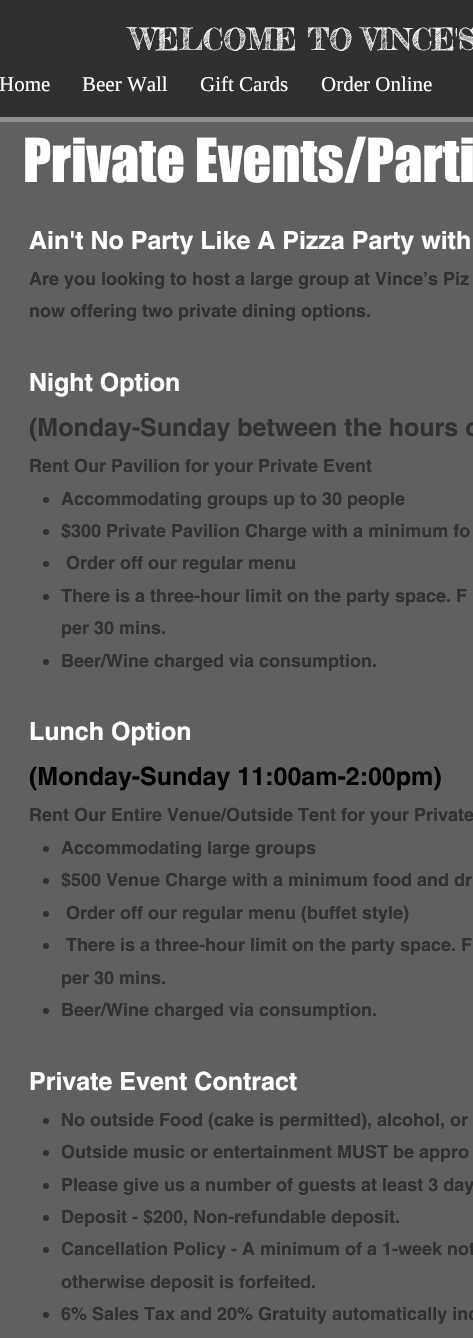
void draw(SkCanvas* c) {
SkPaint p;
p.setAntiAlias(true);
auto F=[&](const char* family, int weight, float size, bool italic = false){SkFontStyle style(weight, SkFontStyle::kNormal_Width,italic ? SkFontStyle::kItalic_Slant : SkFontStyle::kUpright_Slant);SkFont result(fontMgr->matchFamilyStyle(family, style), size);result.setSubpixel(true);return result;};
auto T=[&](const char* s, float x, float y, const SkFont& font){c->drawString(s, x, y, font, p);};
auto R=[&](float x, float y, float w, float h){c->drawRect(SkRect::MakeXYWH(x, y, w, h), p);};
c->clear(0xff606060);
p.setColor(0xff303030);
R(0,0,473,117);
p.setColor(0xff909090);
R(0,117,473,5);
auto f1 = F("Fredericka the Great",400,30);
p.setColor(0xffffffff);
T("WELCOME TO VINCE'S",130,50,f1);
auto f2 = F("Liberation Serif",400,21);
T("Home",-1,91,f2);
T("Beer Wall",82,91,f2);
T("Gift Cards",200,91,f2);
T("Order Online",321,91,f2);
auto f3 = F("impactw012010",400,56);
T("Private Events/Parti",23,182,f3);
auto f4 = F("helvetica",700,25);
T("Ain't No Party Like A Pizza Party with",29,249,f4);
auto f5 = F("helvetica",700,18);
p.setColor(0xff303030);
T("Are you looking to host a large group at Vince’s Piz",29,285,f5);
T("now offering two private dining options.",29,317,f5);
p.setColor(0xffffffff);
T("Night Option",29,391,f4);
p.setColor(0xff303030);
T("(Monday-Sunday between the hours o",29,436,f4);
T("Rent Our Pavilion for your Private Event",29,472,f5);
c->drawCircle(46,500,3,p);
T("Accommodating groups up to 30 people",61,505,f5);
c->drawCircle(46,532,3,p);
T("$300 Private Pavilion Charge with a minimum fo",61,537,f5);
c->drawCircle(46,564,3,p);
T("Order off our regular menu",66,569,f5);
c->drawCircle(46,597,3,p);
T("There is a three-hour limit on the party space. F",61,602,f5);
T("per 30 mins.",61,634,f5);
c->drawCircle(46,662,3,p);
T("Beer/Wine charged via consumption.",61,667,f5);
p.setColor(0xffffffff);
T("Lunch Option",29,740,f4);
p.setColor(0xff000000);
T("(Monday-Sunday 11:00am-2:00pm)",29,785,f4);
p.setColor(0xff303030);
T("Rent Our Entire Venue/Outside Tent for your Private",29,821,f5);
c->drawCircle(46,849,3,p);
T("Accommodating large groups",61,854,f5);
c->drawCircle(46,881,3,p);
T("$500 Venue Charge with a minimum food and dr",61,886,f5);
c->drawCircle(46,914,3,p);
T("Order off our regular menu (buffet style)",66,919,f5);
c->drawCircle(46,946,3,p);
T("There is a three-hour limit on the party space. F",66,951,f5);
T("per 30 mins.",61,984,f5);
c->drawCircle(46,1011,3,p);
T("Beer/Wine charged via consumption.",61,1016,f5);
p.setColor(0xffffffff);
T("Private Event Contract",29,1090,f4);
p.setColor(0xff303030);
c->drawCircle(46,1121,3,p);
T("No outside Food (cake is permitted), alcohol, or",61,1126,f5);
c->drawCircle(46,1153,3,p);
T("Outside music or entertainment MUST be appro",61,1158,f5);
c->drawCircle(46,1186,3,p);
T("Please give us a number of guests at least 3 day",61,1191,f5);
c->drawCircle(46,1218,3,p);
T("Deposit - $200, Non-refundable deposit.",61,1223,f5);
c->drawCircle(46,1250,3,p);
T("Cancellation Policy - A minimum of a 1-week not",61,1255,f5);
T("otherwise deposit is forfeited.",61,1288,f5);
c->drawCircle(46,1315,3,p);
T("6% Sales Tax and 20% Gratuity automatically inc",61,1320,f5);
}
